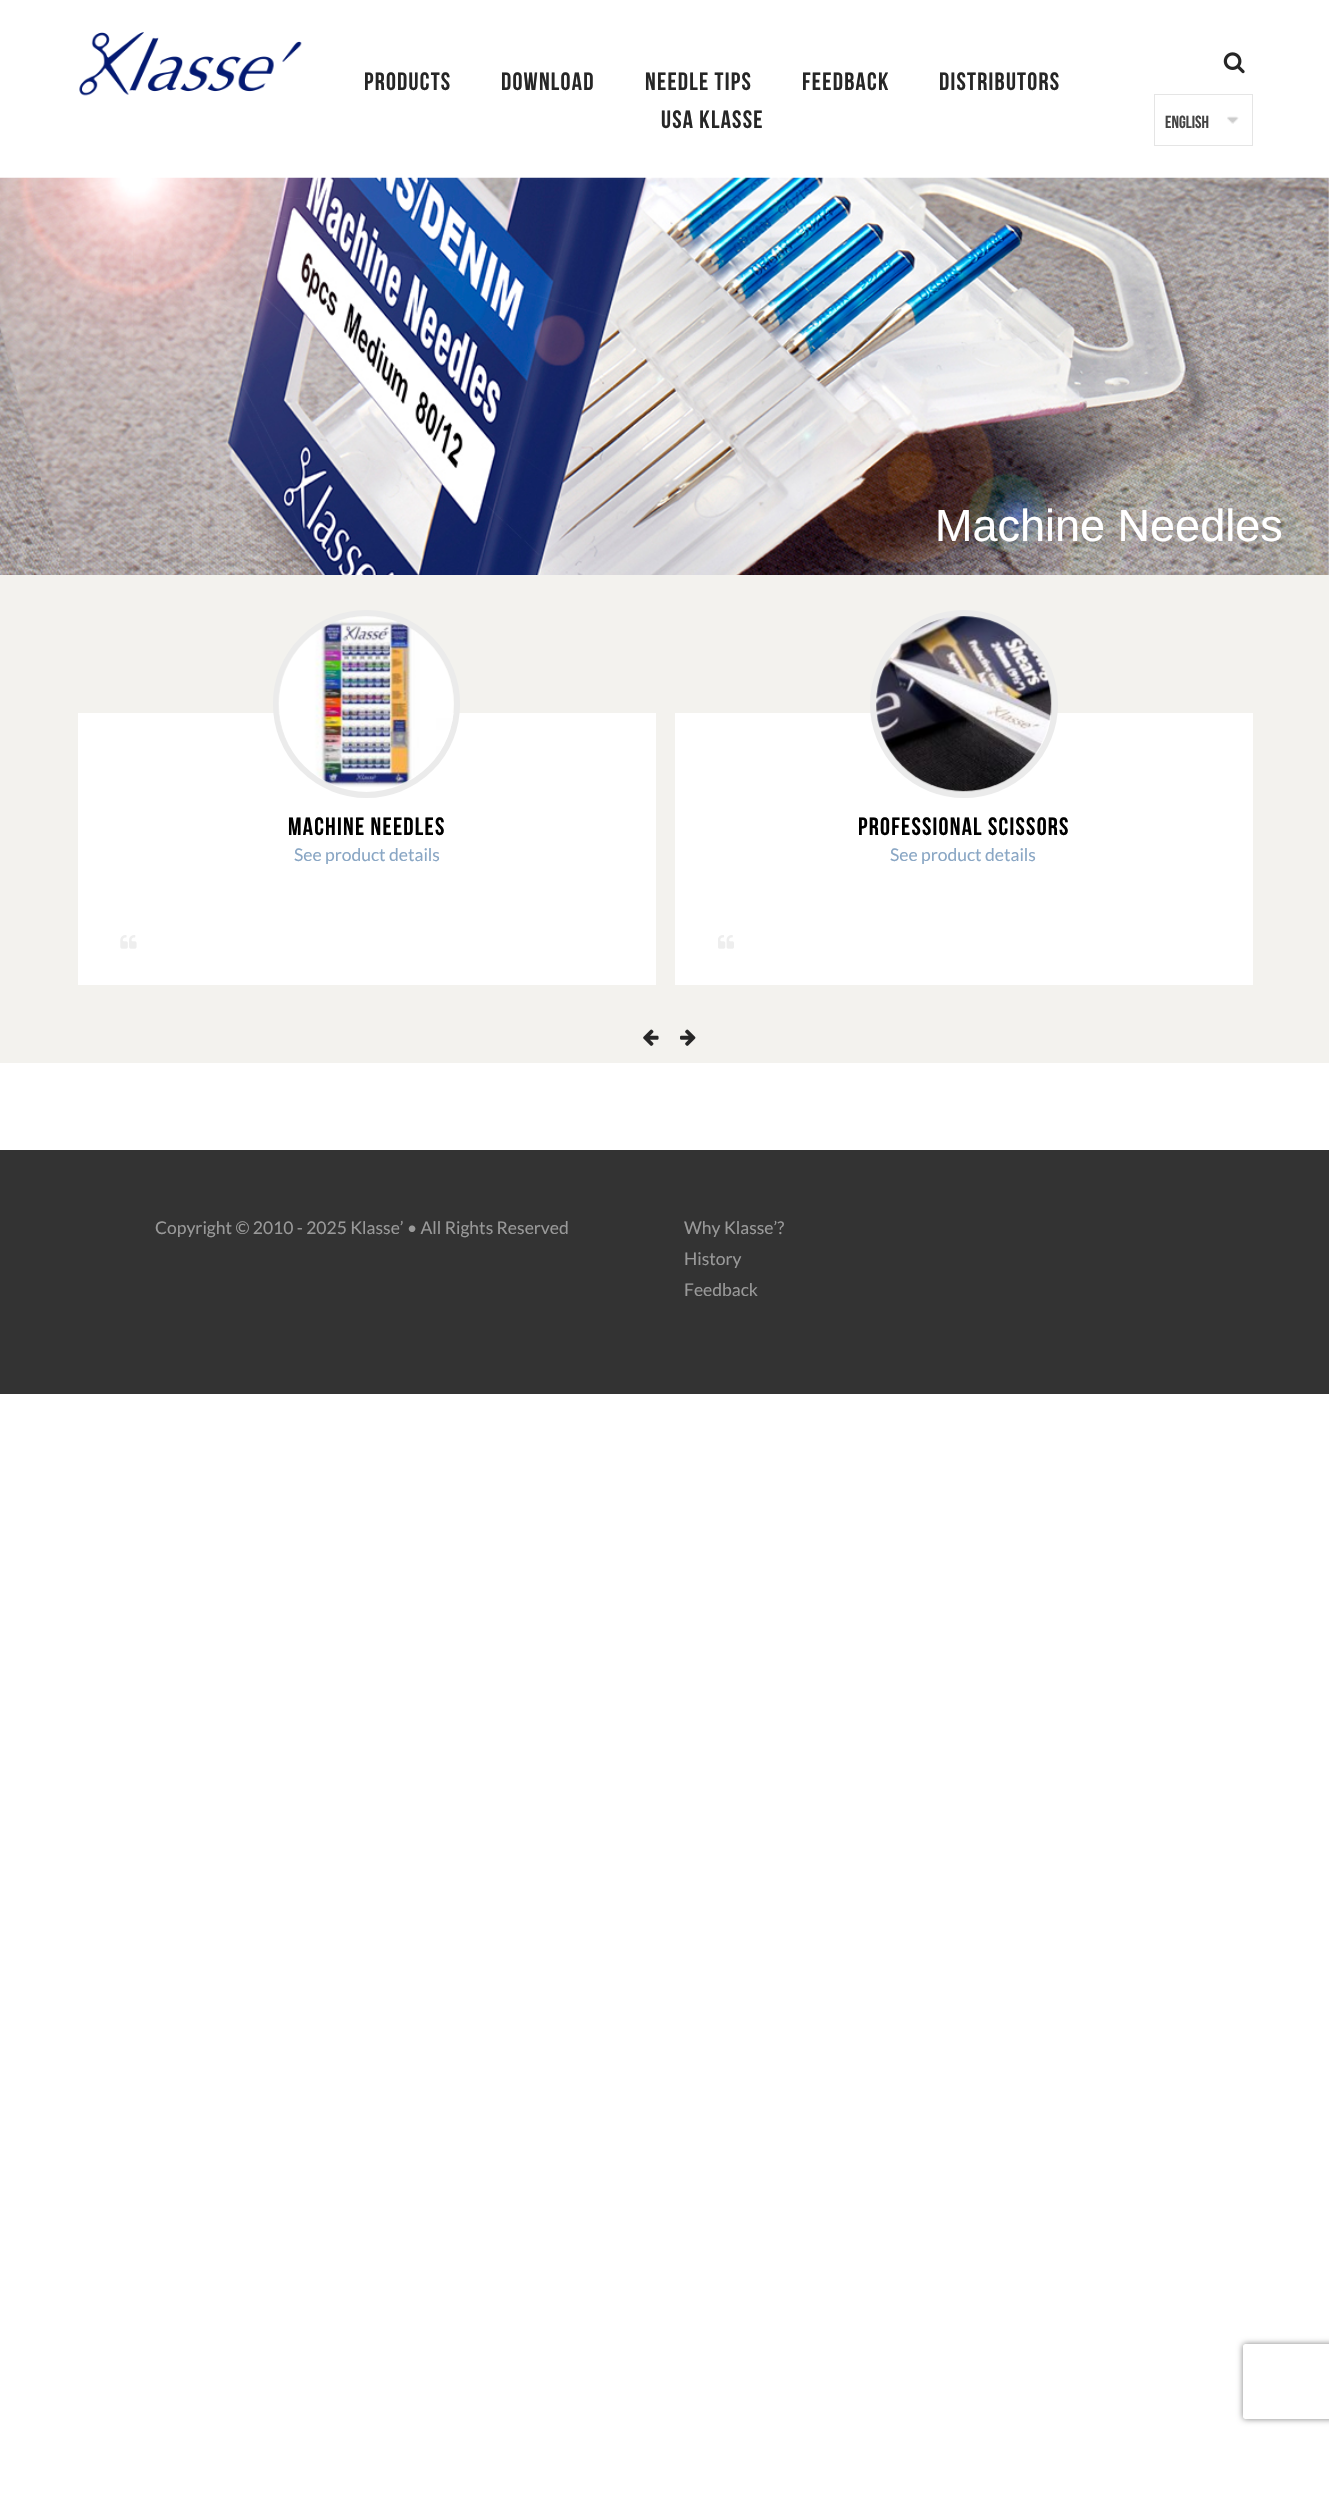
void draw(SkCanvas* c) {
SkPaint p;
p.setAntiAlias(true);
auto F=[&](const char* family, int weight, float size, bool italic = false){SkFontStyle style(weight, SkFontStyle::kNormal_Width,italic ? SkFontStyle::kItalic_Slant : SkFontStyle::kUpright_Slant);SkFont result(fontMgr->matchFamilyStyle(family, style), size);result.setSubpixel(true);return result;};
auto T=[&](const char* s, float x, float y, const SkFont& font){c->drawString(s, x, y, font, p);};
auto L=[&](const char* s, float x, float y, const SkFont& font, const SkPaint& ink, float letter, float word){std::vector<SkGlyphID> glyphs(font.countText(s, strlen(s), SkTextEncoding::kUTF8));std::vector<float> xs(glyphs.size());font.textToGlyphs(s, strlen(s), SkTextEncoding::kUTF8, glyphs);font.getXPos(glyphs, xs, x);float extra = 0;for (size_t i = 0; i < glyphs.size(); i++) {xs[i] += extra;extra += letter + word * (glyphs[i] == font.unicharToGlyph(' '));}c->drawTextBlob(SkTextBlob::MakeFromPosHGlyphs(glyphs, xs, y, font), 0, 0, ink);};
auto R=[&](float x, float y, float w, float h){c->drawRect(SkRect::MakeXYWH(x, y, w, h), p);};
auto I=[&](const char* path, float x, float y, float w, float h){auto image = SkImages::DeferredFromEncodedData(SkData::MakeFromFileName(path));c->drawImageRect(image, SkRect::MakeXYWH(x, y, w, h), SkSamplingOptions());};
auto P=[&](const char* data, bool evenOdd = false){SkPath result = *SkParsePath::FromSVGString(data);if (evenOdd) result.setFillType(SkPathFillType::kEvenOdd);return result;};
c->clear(0xffffffff);
I("1.png",79,32,223,64);
auto f1 = F("Bebas Neue",400,25);
p.setColor(0xff262626);
L("PRODUCTS",364,90,f1,p,1.25,0);
L("DOWNLOAD",501,90,f1,p,1.25,0);
L("NEEDLE TIPS",645,90,f1,p,1.25,0);
L("FEEDBACK",802,90,f1,p,1.25,0);
L("DISTRIBUTORS",939,90,f1,p,1.25,0);
L("USA KLASSE",661,128,f1,p,1.25,0);
I("2.png",1223,52,22,22);
I("3.png",1227,116,12,8);
p.setStroke(true);
p.setStrokeWidth(1);
p.setColor(0xffe5e5e5);
c->drawRect(SkRect::MakeXYWH(1154.5,94.5,98,51),p);
auto f2 = F("Bebas Neue",400,17.5);
p.setStroke(false);
p.setColor(0xff444444);
T("English",1165,128,f2);
p.setColor(0xfff3f2ee);
R(0,178,1329,885);
I("4.png",0,177,1329,398);
auto f3 = F("Liberation Sans",400,45);
p.setColor(0xffffffff);
T("Machine Needles",935,541,f3);
R(78,713,578,272);
p.setStroke(true);
p.setStrokeWidth(6);
p.setColor(0xffebebeb);
c->drawRoundRect(SkRect::MakeXYWH(276,613,181,182),90.5,90.5,p);
I("5.png",278,616,176,171);
I("6.png",120,935,17,14);
p.setStroke(false);
p.setColor(0xff000000);
L("MACHINE NEEDLES",288,835,f1,p,1.25,0);
auto f4 = F("Lato",400,17.5);
p.setColor(0xff89a6c4);
T("See product details",294,861,f4);
p.setColor(0xffffffff);
R(675,713,578,272);
p.setStroke(true);
p.setColor(0xffebebeb);
c->drawCircle(964,704,91,p);
I("7.png",876,616,176,176);
I("8.png",718,935,16,14);
p.setStroke(false);
p.setColor(0xff000000);
L("PROFESSIONAL SCISSORS",858,835,f1,p,1.25,0);
p.setColor(0xff89a6c4);
T("See product details",890,861,f4);
I("9.png",643,1029,16,17);
I("10.png",680,1029,16,17);
p.setColor(0xff333333);
R(0,1150,1329,244);
p.setColor(0xff999999);
T("Copyright © 2010 - 2025 Klasse’ • All Rights Reserved",155,1234,f4);
T("Why Klasse’?",684,1234,f4);
T("History",684,1265,f4);
T("Feedback",684,1296,f4);
c->save();
c->clipPath(P("M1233 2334h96v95h-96zm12.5 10h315c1.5 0 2.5 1 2.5 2.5v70c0 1.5-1 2.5-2.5 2.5h-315c-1.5 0-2.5-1-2.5-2.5v-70c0-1.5 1-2.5 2.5-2.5z",true),true);
p.setColor(0xff808080);
p.setMaskFilter(SkMaskFilter::MakeBlur(kNormal_SkBlurStyle, 3));
c->drawRoundRect(SkRect::MakeXYWH(1243,2344,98,75),2.5,2.5,p);
p.setMaskFilter(nullptr);
c->restore();
}
